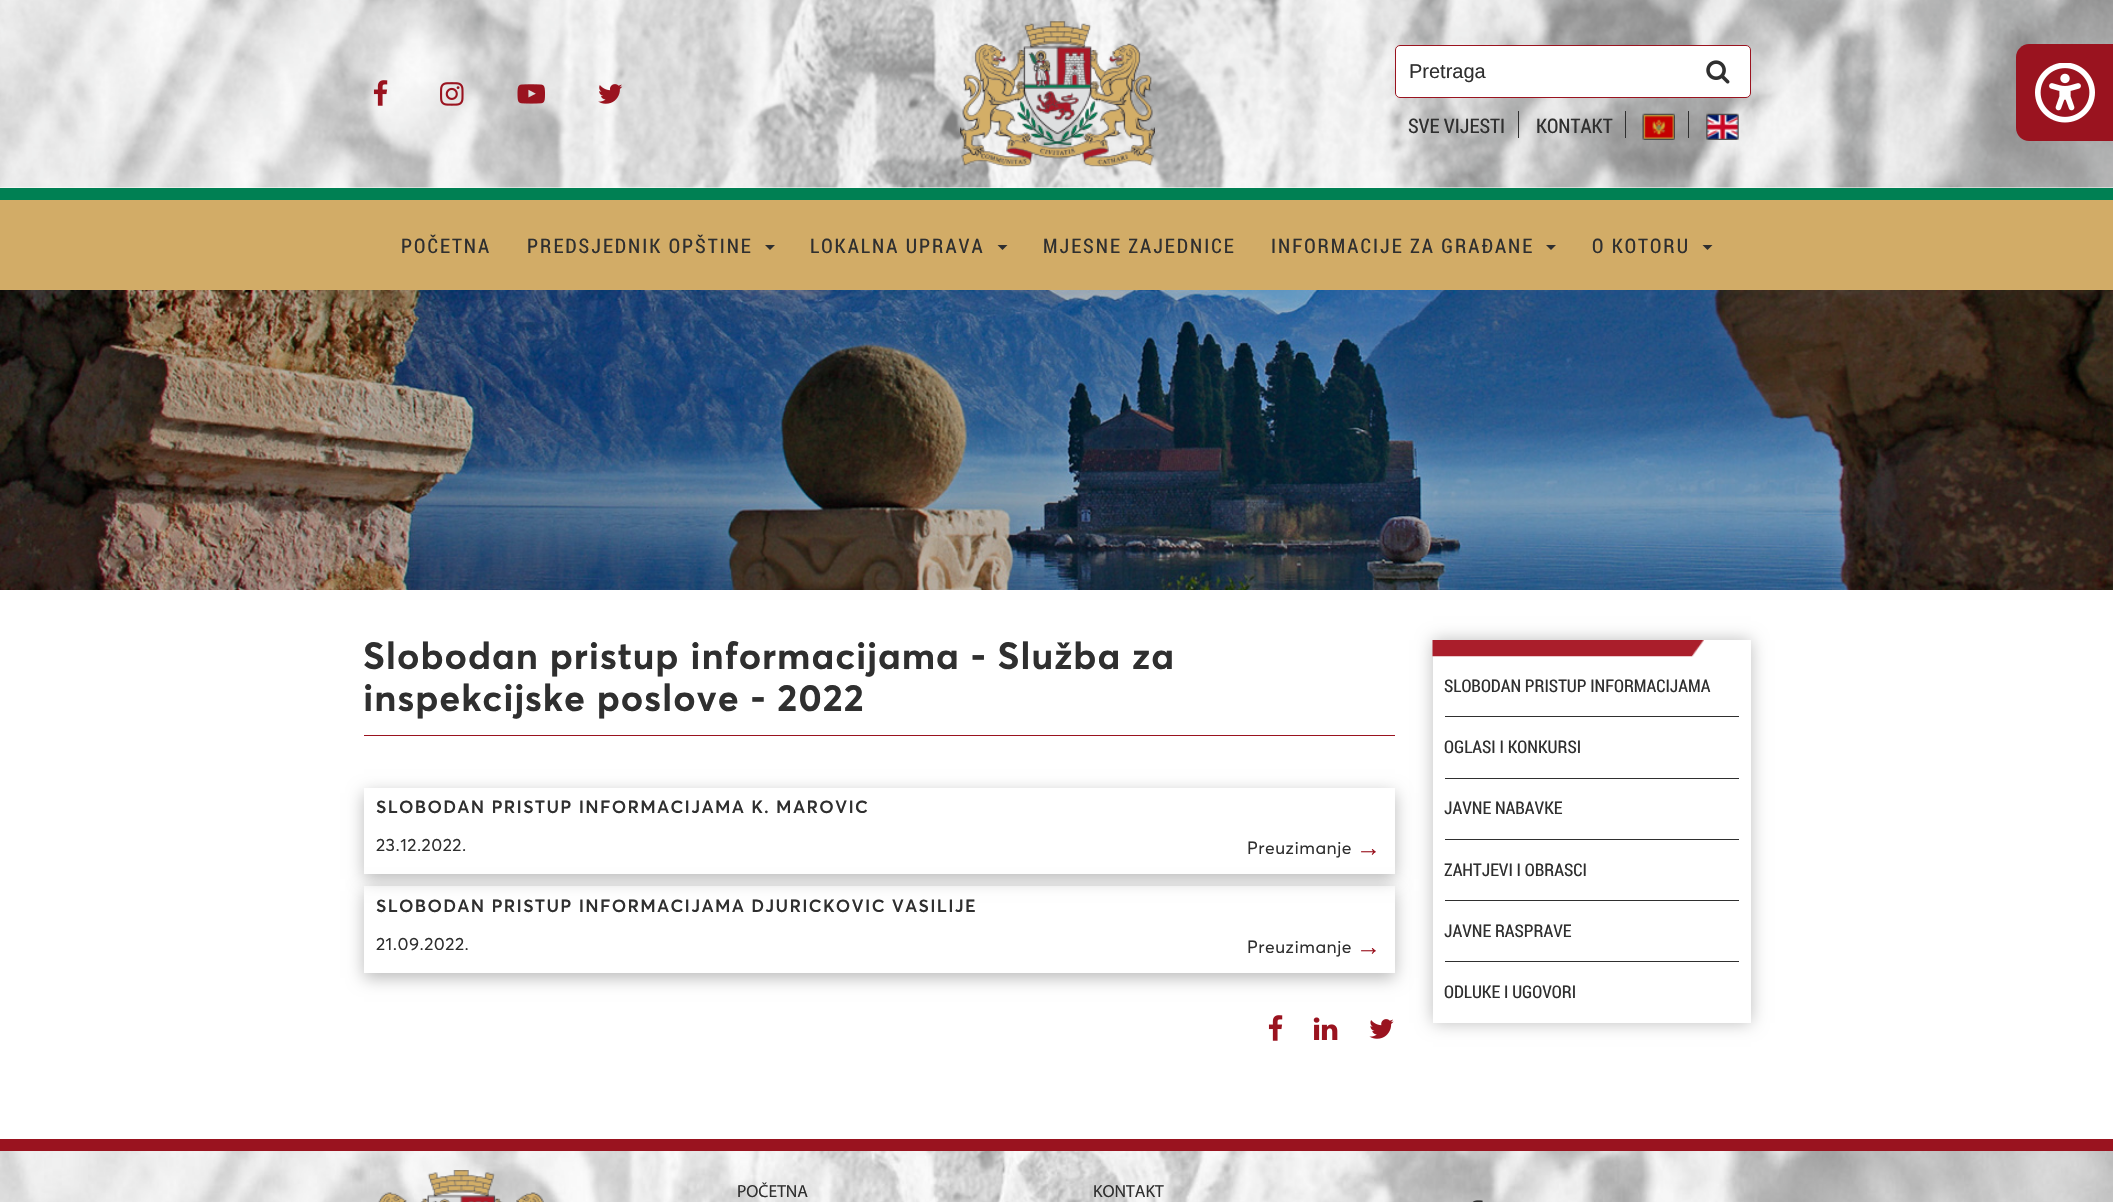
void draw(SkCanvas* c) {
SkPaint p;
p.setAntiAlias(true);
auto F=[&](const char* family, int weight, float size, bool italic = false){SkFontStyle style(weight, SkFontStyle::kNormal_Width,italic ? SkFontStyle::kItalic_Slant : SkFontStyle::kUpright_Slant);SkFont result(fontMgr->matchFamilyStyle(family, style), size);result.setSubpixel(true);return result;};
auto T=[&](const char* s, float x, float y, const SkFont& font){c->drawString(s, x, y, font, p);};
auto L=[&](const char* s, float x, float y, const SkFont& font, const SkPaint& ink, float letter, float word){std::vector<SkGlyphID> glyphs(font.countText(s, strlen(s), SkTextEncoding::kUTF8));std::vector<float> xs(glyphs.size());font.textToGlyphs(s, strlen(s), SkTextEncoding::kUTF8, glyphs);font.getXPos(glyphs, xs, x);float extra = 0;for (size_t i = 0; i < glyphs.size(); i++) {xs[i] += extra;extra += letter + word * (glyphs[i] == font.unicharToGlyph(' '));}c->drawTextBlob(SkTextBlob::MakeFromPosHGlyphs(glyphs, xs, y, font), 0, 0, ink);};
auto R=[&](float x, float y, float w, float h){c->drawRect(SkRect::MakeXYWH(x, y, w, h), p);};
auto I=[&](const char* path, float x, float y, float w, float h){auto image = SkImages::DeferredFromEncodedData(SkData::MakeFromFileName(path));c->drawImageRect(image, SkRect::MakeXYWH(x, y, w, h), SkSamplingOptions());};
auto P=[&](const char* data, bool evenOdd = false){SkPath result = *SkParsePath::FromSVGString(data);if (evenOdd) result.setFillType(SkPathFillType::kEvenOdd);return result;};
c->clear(0xffffffff);
I("1.png",0,0,2113,188);
p.setColor(0xff008053);
R(0,188,2113,12);
I("2.png",373,80,15,26);
I("3.png",440,82,24,24);
I("4.png",517,84,28,20);
I("5.png",598,84,25,20);
I("6.png",960,21,195,146);
p.setColor(0xffffffff);
c->drawRoundRect(SkRect::MakeXYWH(1395.5,45.5,355,52),4.5,4.5,p);
p.setStroke(true);
p.setStrokeWidth(1);
p.setColor(0xff9a131f);
c->drawRoundRect(SkRect::MakeXYWH(1395.5,45.5,355,52),4.5,4.5,p);
auto f1 = F("Liberation Sans",400,20);
p.setStroke(false);
p.setColor(0xff2f2f2f);
T("Pretraga",1409,78,f1);
I("7.png",1706,60,24,24);
auto f2 = F("Roboto Condensed",400,20);
T("SVE VIJESTI",1408,133,f2);
R(1518,111,1,27);
T("KONTAKT",1536,133,f2);
R(1625,111,1,27);
I("8.png",1642,113,33,27);
R(1688,111,1,27);
I("9.png",1706,113,33,27);
p.setColor(0xff9a131f);
c->drawPath(P("M2029 44h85v97h-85c-7 0-13-6-13-13v-71c0-7 6-13 13-13z"),p);
I("10.png",2035,63,60,60);
p.setColor(0xffd2ac67);
R(0,200,2113,90);
p.setColor(0xff2f2f2f);
L("POČETNA",401,253,f2,p,2,0);
L("PREDSJEDNIK OPŠTINE",527,253,f2,p,2,0);
c->drawPath(P("M765 245h10l-5 5z"),p);
L("LOKALNA UPRAVA",810,253,f2,p,2,0);
c->drawPath(P("M997.5 245h10l-5 5z"),p);
L("MJESNE ZAJEDNICE",1043,253,f2,p,2,0);
L("INFORMACIJE ZA GRAĐANE",1271,253,f2,p,2,0);
c->drawPath(P("M1546 245h10l-5 5z"),p);
L("O KOTORU",1592,253,f2,p,2,0);
c->drawPath(P("M1702.5 245h10l-5 5z"),p);
I("11.png",0,290,2113,300);
p.setColor(0xff9a131f);
R(364,735,1031,1);
auto f3 = F("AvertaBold",700,37.5);
p.setColor(0xff2f2f2f);
L("Slobodan pristup informacijama - Služba za",363,669,f3,p,.95,0);
L("inspekcijske poslove - 2022",363,711,f3,p,.95,0);
c->save();
c->clipPath(P("M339 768h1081v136h-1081zm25 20h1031v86h-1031z",true),true);
p.setColor(0x45000000);
p.setMaskFilter(SkMaskFilter::MakeBlur(kNormal_SkBlurStyle, 8));
c->drawRect(SkRect::MakeXYWH(364,793,1031,86),p);
p.setMaskFilter(nullptr);
c->restore();
auto f4 = F("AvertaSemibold",600,17.5);
p.setColor(0xff2f2f2f);
L("SLOBODAN PRISTUP INFORMACIJAMA K. MAROVIC",376,813,f4,p,1.3,0);
auto f5 = F("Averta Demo",400,17.5);
L("23.12.2022.",376,851,f5,p,.5,0);
L("Preuzimanje",1247,854,f5,p,.5,0);
auto f6 = F("Liberation Serif",400,25);
p.setColor(0xff9a131f);
L("→",1356,856,f6,p,.5,0);
c->save();
c->clipPath(P("M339 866h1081v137h-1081zm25 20h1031v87h-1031z",true),true);
p.setColor(0x45000000);
p.setMaskFilter(SkMaskFilter::MakeBlur(kNormal_SkBlurStyle, 8));
c->drawRect(SkRect::MakeXYWH(364,891,1031,87),p);
p.setMaskFilter(nullptr);
c->restore();
p.setColor(0xff2f2f2f);
L("SLOBODAN PRISTUP INFORMACIJAMA DJURICKOVIC VASILIJE",376,912,f4,p,1.3,0);
L("21.09.2022.",376,950,f5,p,.5,0);
L("Preuzimanje",1247,953,f5,p,.5,0);
p.setColor(0xff9a131f);
L("→",1356,955,f6,p,.5,0);
I("12.png",1268,1015,15,26);
I("13.png",1313,1017,25,23);
I("14.png",1369,1019,25,20);
c->save();
c->clipPath(P("M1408 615h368v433h-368zm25 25h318v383h-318z",true),true);
p.setColor(0x42000000);
p.setMaskFilter(SkMaskFilter::MakeBlur(kNormal_SkBlurStyle, 8));
c->drawRect(SkRect::MakeXYWH(1433,640,318,383),p);
p.setMaskFilter(nullptr);
c->restore();
I("15.png",1432,640,272,17);
p.setColor(0xff2f2f2f);
R(1445,716,294,1);
auto f7 = F("Roboto Condensed",400,17.5);
T("SLOBODAN PRISTUP INFORMACIJAMA",1444,692,f7);
R(1445,778,294,1);
T("OGLASI I KONKURSI",1444,753,f7);
R(1445,839,294,1);
T("JAVNE NABAVKE",1444,814,f7);
R(1445,900,294,1);
T("ZAHTJEVI I OBRASCI",1444,876,f7);
R(1445,961,294,1);
T("JAVNE RASPRAVE",1444,937,f7);
T("ODLUKE I UGOVORI",1444,998,f7);
I("16.png",0,1151,2113,51);
p.setColor(0xff9a131f);
R(0,1139,2113,12);
I("17.png",378,1170,166,32);
auto f8 = F("Myriad",400,17.5);
p.setColor(0xff2f2f2f);
T("POČETNA",737,1197,f8);
T("KONTAKT",1093,1197,f8);
I("18.png",1472,1200,11,2);
}
